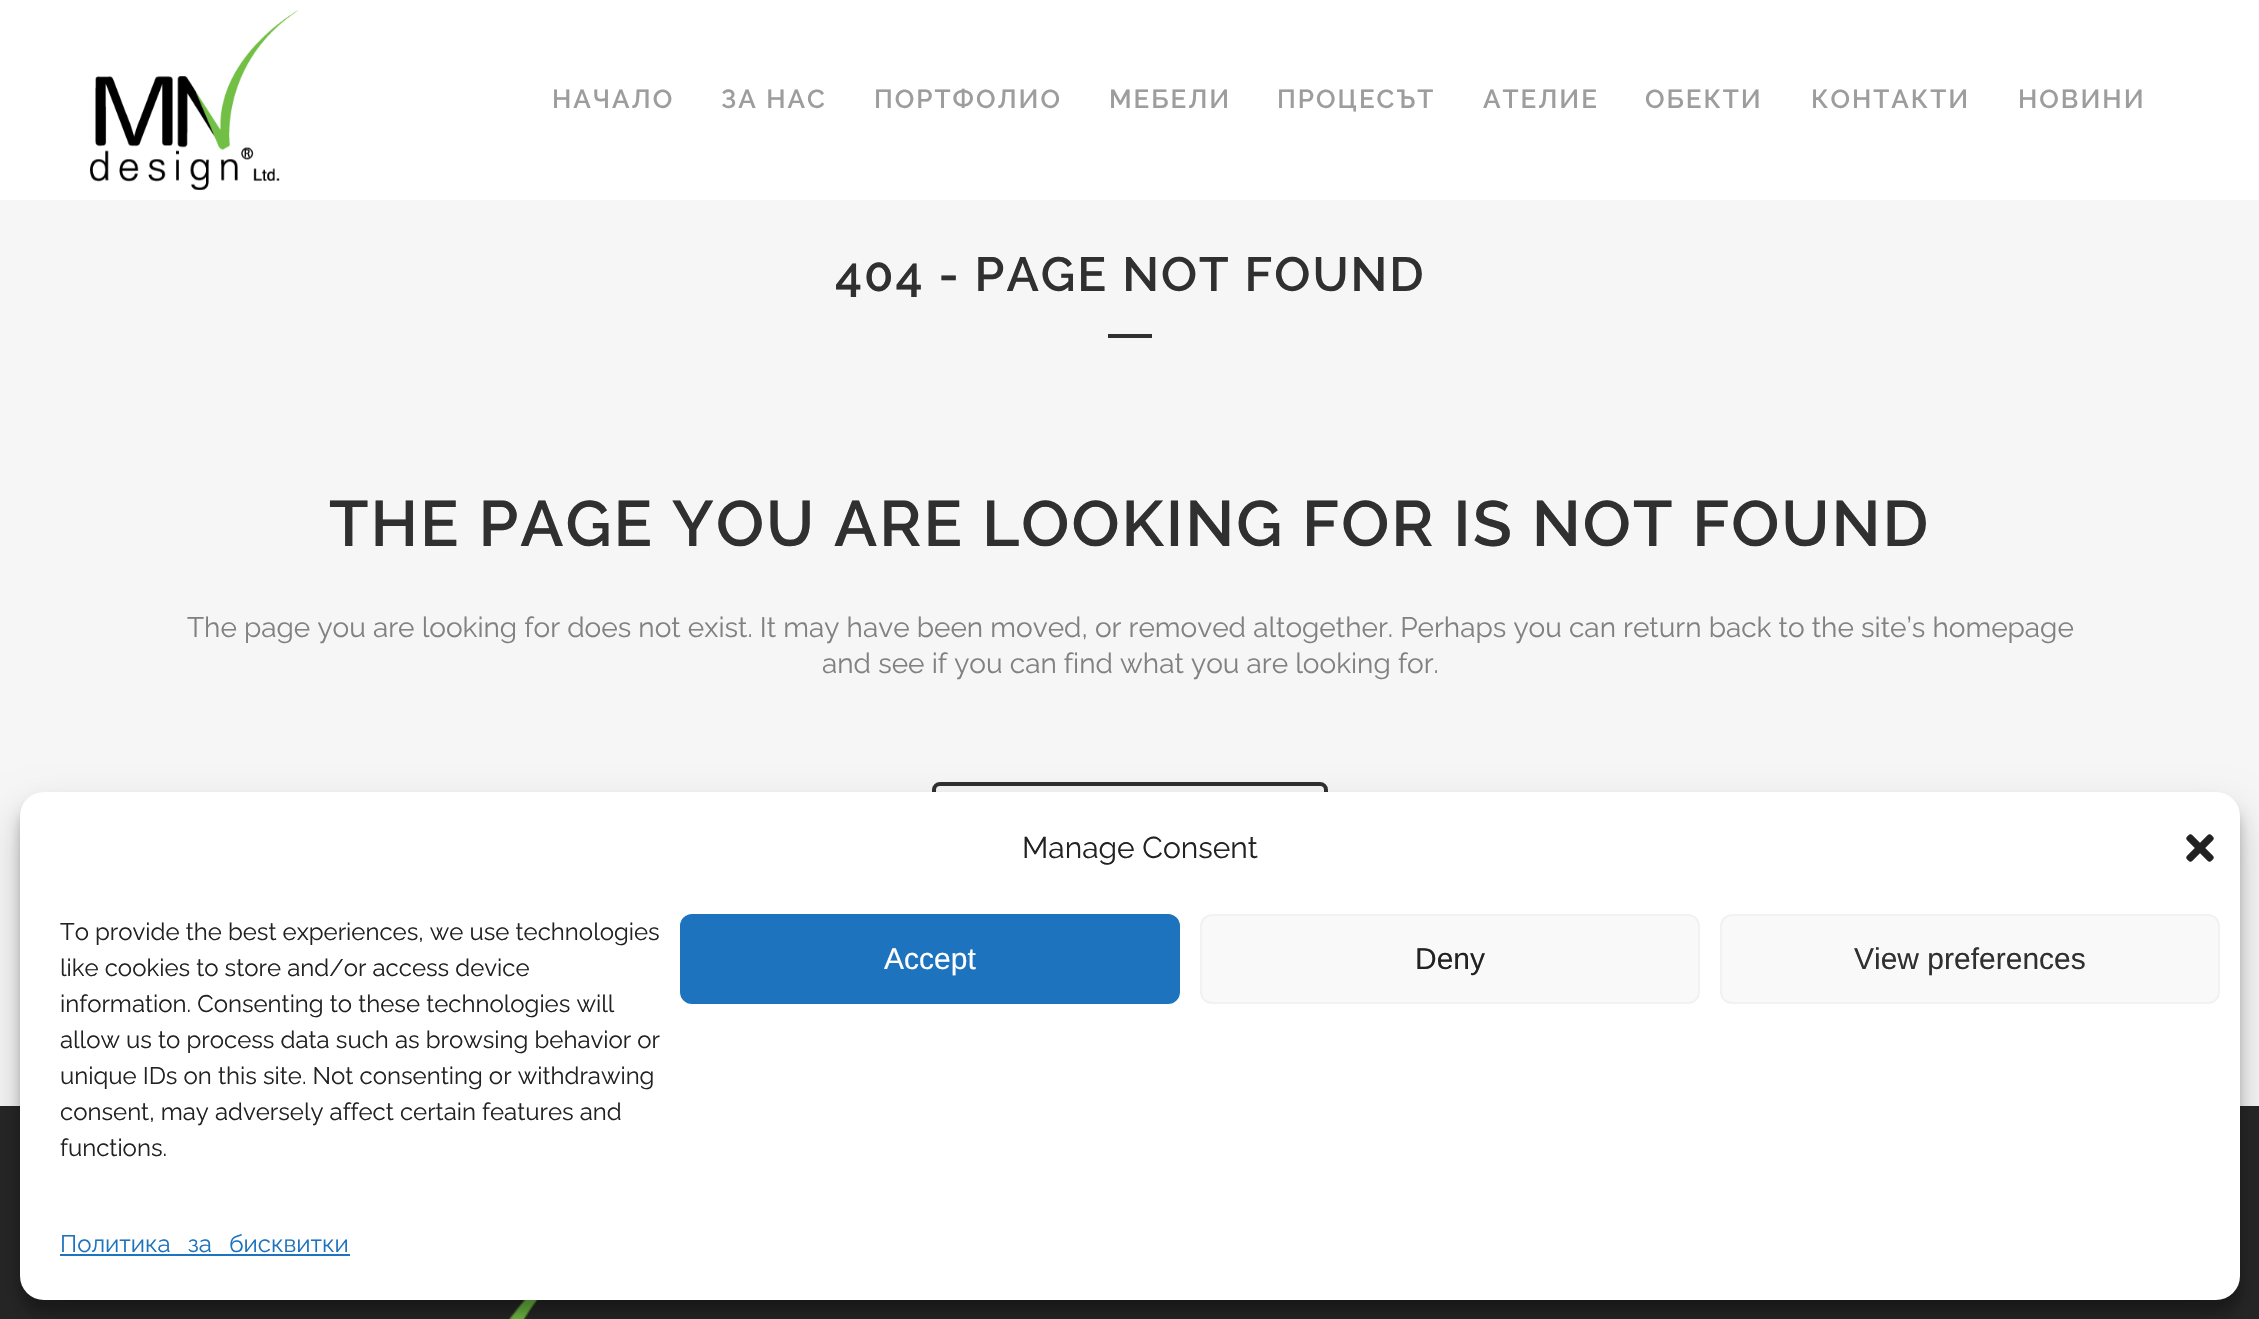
void draw(SkCanvas* c) {
SkPaint p;
p.setAntiAlias(true);
auto F=[&](const char* family, int weight, float size, bool italic = false){SkFontStyle style(weight, SkFontStyle::kNormal_Width,italic ? SkFontStyle::kItalic_Slant : SkFontStyle::kUpright_Slant);SkFont result(fontMgr->matchFamilyStyle(family, style), size);result.setSubpixel(true);return result;};
auto T=[&](const char* s, float x, float y, const SkFont& font){c->drawString(s, x, y, font, p);};
auto L=[&](const char* s, float x, float y, const SkFont& font, const SkPaint& ink, float letter, float word){std::vector<SkGlyphID> glyphs(font.countText(s, strlen(s), SkTextEncoding::kUTF8));std::vector<float> xs(glyphs.size());font.textToGlyphs(s, strlen(s), SkTextEncoding::kUTF8, glyphs);font.getXPos(glyphs, xs, x);float extra = 0;for (size_t i = 0; i < glyphs.size(); i++) {xs[i] += extra;extra += letter + word * (glyphs[i] == font.unicharToGlyph(' '));}c->drawTextBlob(SkTextBlob::MakeFromPosHGlyphs(glyphs, xs, y, font), 0, 0, ink);};
auto R=[&](float x, float y, float w, float h){c->drawRect(SkRect::MakeXYWH(x, y, w, h), p);};
auto Q=[&](float x, float y, float w, float h, float radius){c->drawRoundRect(SkRect::MakeXYWH(x, y, w, h), radius, radius, p);};
auto I=[&](const char* path, float x, float y, float w, float h){auto image = SkImages::DeferredFromEncodedData(SkData::MakeFromFileName(path));c->drawImageRect(image, SkRect::MakeXYWH(x, y, w, h), SkSamplingOptions());};
c->clear(0xfff6f6f6);
p.setColor(0xffffffff);
R(0,0,2259,200);
I("1.png",90,10,208,180);
auto f1 = F("Raleway",600,26);
p.setColor(0xff9d9d9d);
L("НАЧАЛО",552,108,f1,p,2,0);
L("ЗА НАС",721,108,f1,p,2,0);
L("ПОРТФОЛИО",874,108,f1,p,2,0);
L("МЕБЕЛИ",1109,108,f1,p,2,0);
L("ПРОЦЕСЪТ",1277,108,f1,p,2,0);
L("АТЕЛИЕ",1483,108,f1,p,2,0);
L("ОБЕКТИ",1645,108,f1,p,2,0);
L("КОНТАКТИ",1811,108,f1,p,2,0);
L("НОВИНИ",2018,108,f1,p,2,0);
auto f2 = F("Raleway",600,48);
p.setColor(0xff303030);
L("404 - PAGE NOT FOUND",835,291,f2,p,2,0);
R(1108,334,44,4);
auto f3 = F("Raleway",600,64);
L("THE PAGE YOU ARE LOOKING FOR IS NOT FOUND",329,546,f3,p,2,0);
auto f4 = F("Raleway",400,28);
p.setColor(0xff818181);
T("The page you are looking for does not exist. It may have been moved, or removed altogether. Perhaps you can return back to the site’s homepage",187,637,f4);
T("and see if you can find what you are looking for.",822,673,f4);
p.setStroke(true);
p.setStrokeWidth(4);
p.setColor(0xff303030);
c->drawRoundRect(SkRect::MakeXYWH(934,784,392,82),6,6,p);
p.setStroke(false);
p.setColor(0xff262626);
R(0,1106,2259,213);
I("2.png",509,1300,29,19);
p.setColor(0x3b000000);
p.setMaskFilter(SkMaskFilter::MakeBlur(kNormal_SkBlurStyle, 6));
c->drawRoundRect(SkRect::MakeXYWH(20,804,2220,508),24,24,p);
p.setMaskFilter(nullptr);
p.setColor(0x30000000);
p.setMaskFilter(SkMaskFilter::MakeBlur(kNormal_SkBlurStyle, 20));
c->drawRoundRect(SkRect::MakeXYWH(20,812,2220,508),24,24,p);
p.setMaskFilter(nullptr);
p.setColor(0xffffffff);
Q(20,792,2220,508,24);
auto f5 = F("Raleway",400,30);
p.setColor(0xff222222);
T("Manage Consent",1022,858,f5);
I("3.png",2186,834,28,28);
auto f6 = F("Raleway",400,24);
T("To provide the best experiences, we use technologies",60,940,f6);
T("like cookies to store and/or access device",60,976,f6);
T("information. Consenting to these technologies will",60,1012,f6);
T("allow us to process data such as browsing behavior or",60,1048,f6);
T("unique IDs on this site. Not consenting or withdrawing",60,1084,f6);
T("consent, may adversely affect certain features and",60,1120,f6);
T("functions.",60,1156,f6);
p.setColor(0xff1e73be);
c->drawRoundRect(SkRect::MakeXYWH(681,915,498,88),11,11,p);
p.setStroke(true);
p.setStrokeWidth(2);
c->drawRoundRect(SkRect::MakeXYWH(681,915,498,88),11,11,p);
auto f7 = F("Liberation Sans",400,30);
p.setStroke(false);
p.setColor(0xffffffff);
T("Accept",884,969,f7);
p.setColor(0xfff9f9f9);
c->drawRoundRect(SkRect::MakeXYWH(1201,915,498,88),11,11,p);
p.setStroke(true);
p.setColor(0xfff2f2f2);
c->drawRoundRect(SkRect::MakeXYWH(1201,915,498,88),11,11,p);
p.setStroke(false);
p.setColor(0xff222222);
T("Deny",1415,969,f7);
p.setColor(0xfff9f9f9);
c->drawRoundRect(SkRect::MakeXYWH(1721,915,498,88),11,11,p);
p.setStroke(true);
p.setColor(0xfff2f2f2);
c->drawRoundRect(SkRect::MakeXYWH(1721,915,498,88),11,11,p);
p.setStroke(false);
p.setColor(0xff303030);
T("View preferences",1854,969,f7);
p.setColor(0xff1e73be);
L("Политика за бисквитки",60,1252,f6,p,0,11);
R(60,1254,290,2);
}
